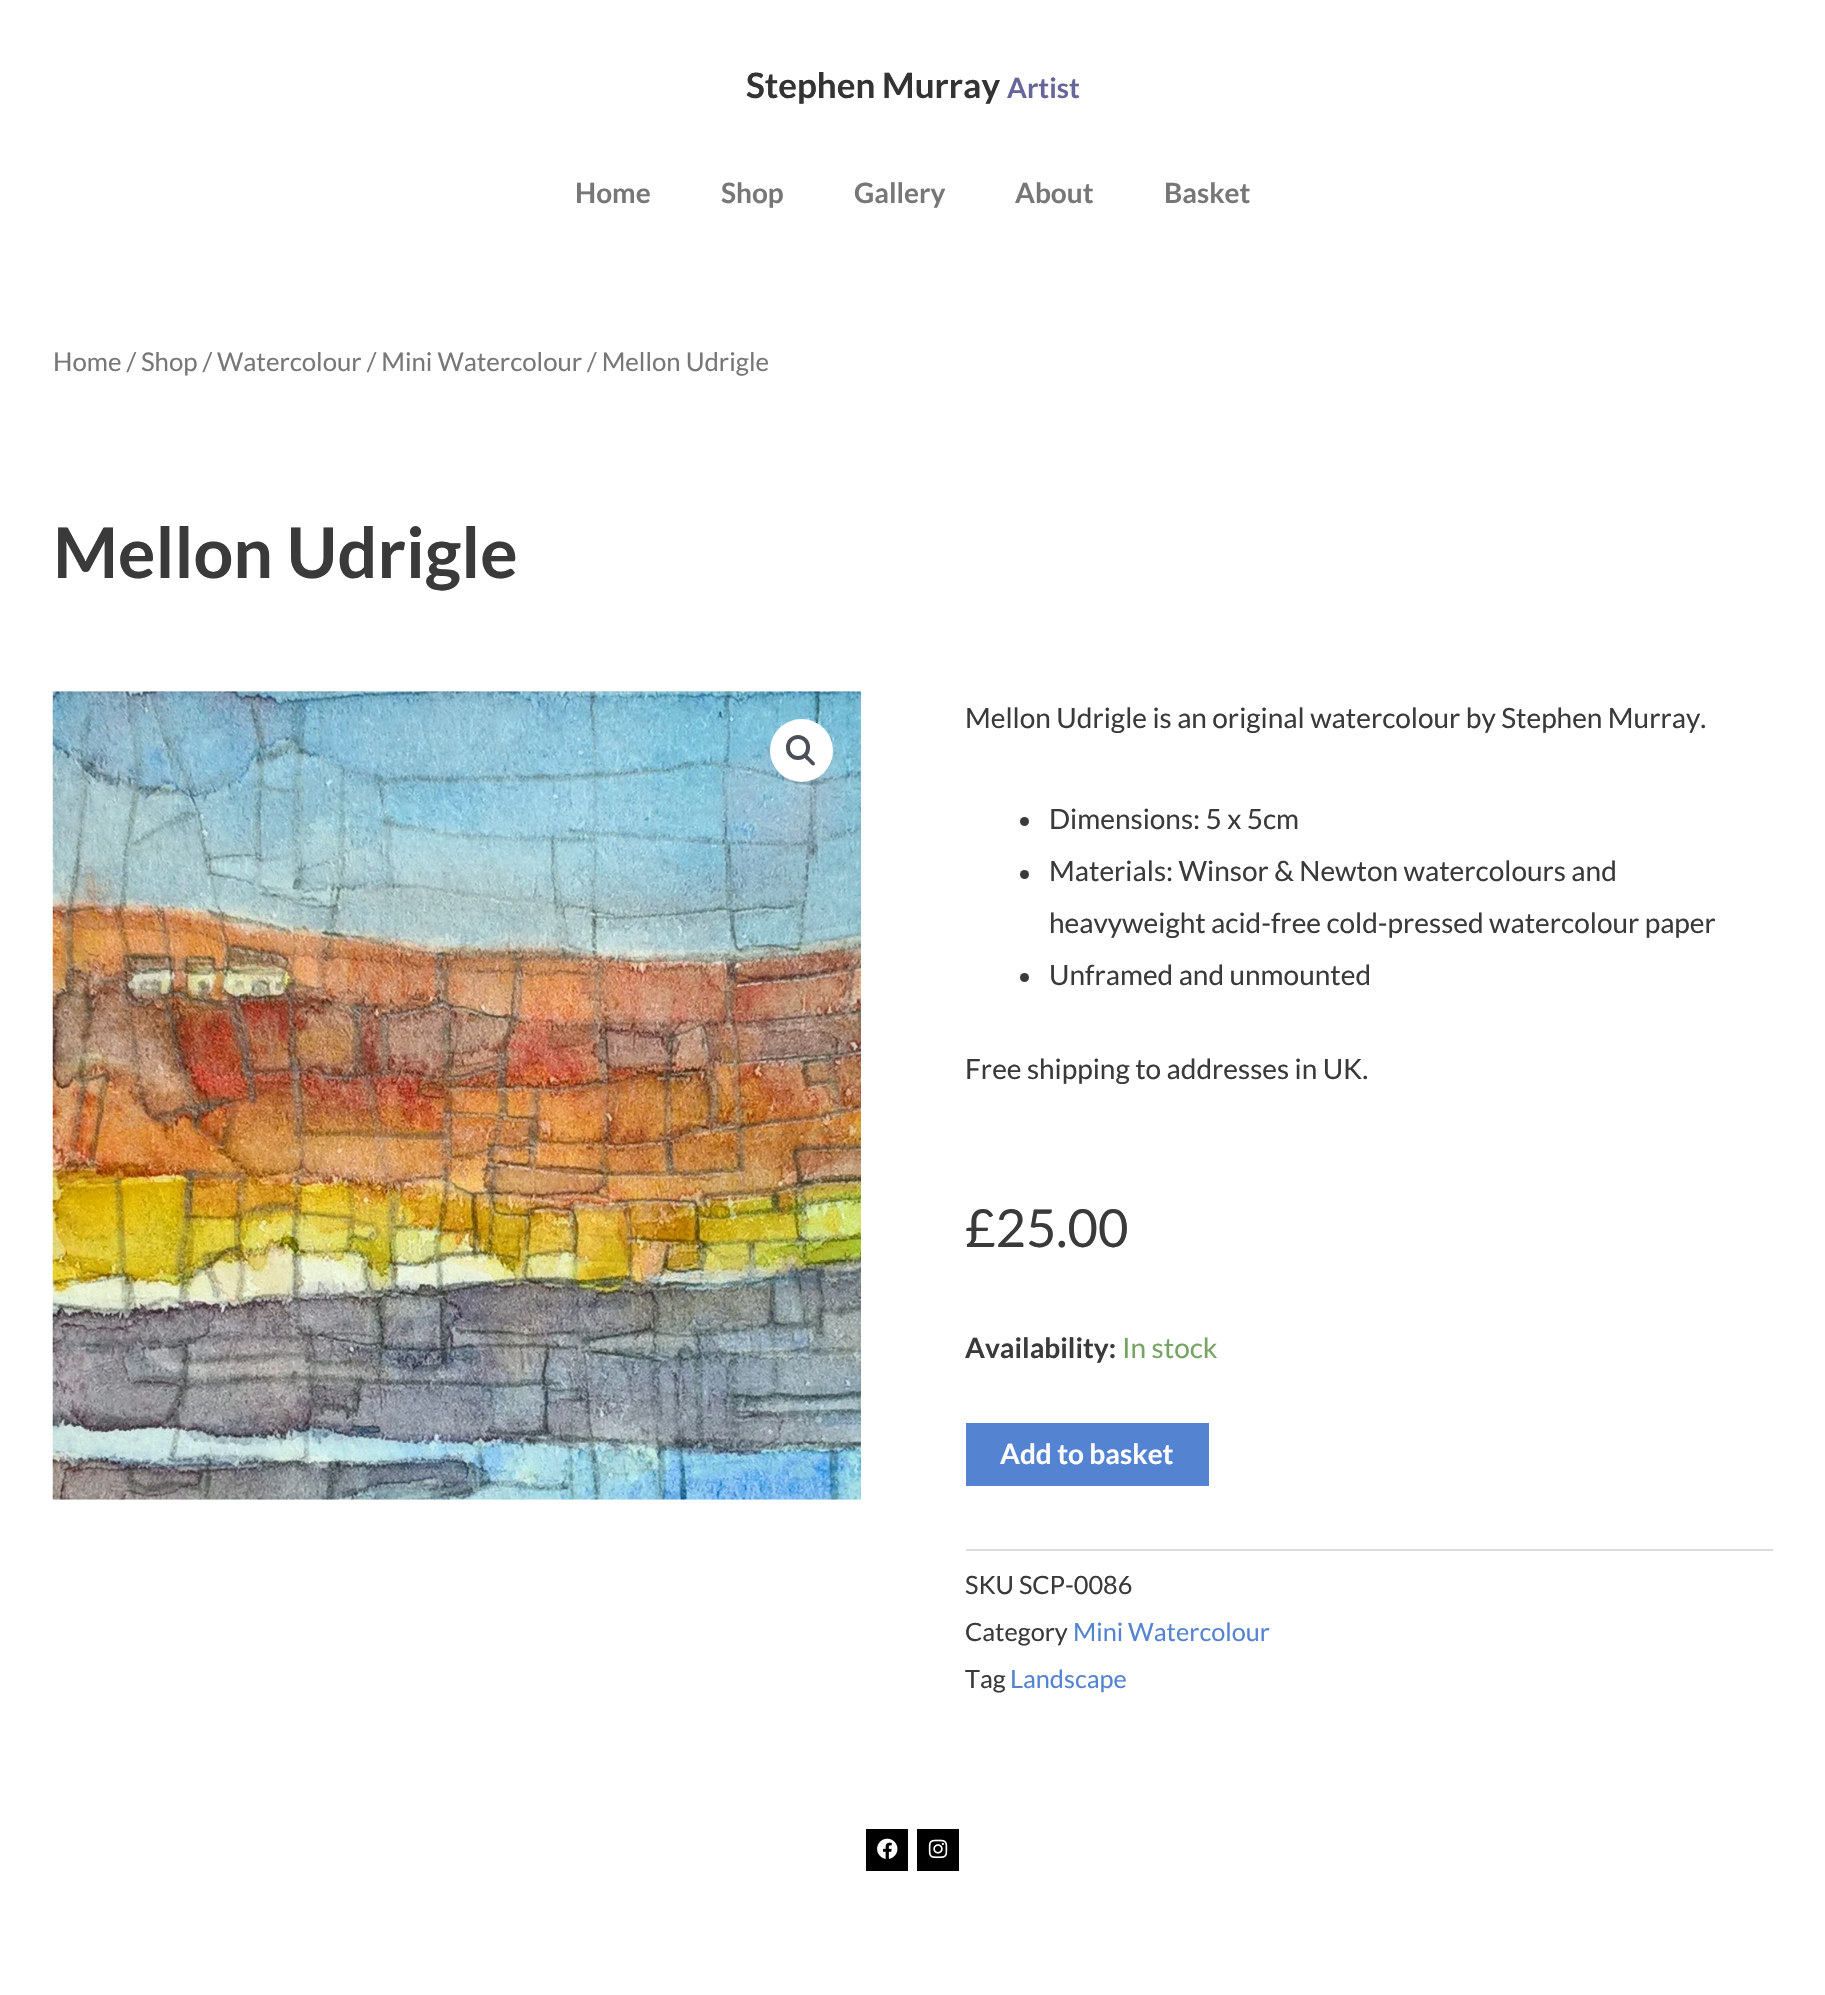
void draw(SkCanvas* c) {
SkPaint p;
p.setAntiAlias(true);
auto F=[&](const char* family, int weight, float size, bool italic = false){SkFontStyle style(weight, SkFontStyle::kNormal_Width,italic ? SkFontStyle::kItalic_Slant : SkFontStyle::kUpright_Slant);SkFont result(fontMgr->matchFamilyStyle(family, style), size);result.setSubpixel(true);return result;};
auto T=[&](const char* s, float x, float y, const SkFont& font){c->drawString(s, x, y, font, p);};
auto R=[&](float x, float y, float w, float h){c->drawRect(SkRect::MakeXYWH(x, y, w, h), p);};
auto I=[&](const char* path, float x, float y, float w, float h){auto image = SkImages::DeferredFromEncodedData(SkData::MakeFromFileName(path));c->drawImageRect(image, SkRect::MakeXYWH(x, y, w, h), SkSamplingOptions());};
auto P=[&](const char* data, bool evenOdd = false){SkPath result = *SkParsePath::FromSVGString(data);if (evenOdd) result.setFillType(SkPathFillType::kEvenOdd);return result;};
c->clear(0xffffffff);
auto f1 = F("Lato",700,35);
p.setColor(0xff333333);
T("Stephen Murray",746,98,f1);
auto f2 = F("Lato",700,28);
p.setColor(0xff666699);
T("Artist",1007,98,f2);
p.setColor(0xff777777);
T("Home",575,203,f2);
T("Shop",721,203,f2);
T("Gallery",854,203,f2);
T("About",1015,203,f2);
T("Basket",1164,203,f2);
auto f3 = F("Lato",400,25.75);
T("Home / Shop / Watercolour / Mini Watercolour / Mellon Udrigle",53,371,f3);
auto f4 = F("Lato",700,70);
p.setColor(0xff3a3a3a);
T("Mellon Udrigle",53,578,f4);
I("1.png",52,691,809,809);
p.setColor(0xffffffff);
c->drawCircle(801.5,750.5,31.5,p);
p.setStroke(true);
p.setStrokeWidth(4);
p.setColor(0xff4b4f58);
c->drawRoundRect(SkRect::MakeXYWH(788,737,20,21),10,10,p);
p.setStroke(false);
c->drawPath(P("M804.5 755c2-2 5 2.5 6 3.5c1 1 6 4.5 4 6.5c-2 2-5.5-3-6.5-4c-1-1-5.5-4-3.5-6z"),p);
auto f5 = F("Lato",400,28);
p.setColor(0xff3a3a3a);
T("Mellon Udrigle is an original watercolour by Stephen Murray.",965,728,f5);
c->drawCircle(1024.5,821.5,4.5,p);
T("Dimensions: 5 x 5cm",1049,829,f5);
c->drawCircle(1024.5,874.5,4.5,p);
T("Materials: Winsor & Newton watercolours and",1049,881,f5);
T("heavyweight acid-free cold-pressed watercolour paper",1049,933,f5);
c->drawCircle(1024.5,977.5,4.5,p);
T("Unframed and unmounted",1049,985,f5);
T("Free shipping to addresses in UK.",965,1079,f5);
auto f6 = F("Lato",400,52.5);
T("£25.00",965,1247,f6);
T("Availability:",965,1358,f2);
p.setColor(0xff77a464);
T("In stock",1122,1358,f5);
p.setColor(0xff5483d1);
R(966,1423,243,63);
p.setColor(0xffffffff);
T("Add to basket",1000,1464,f2);
p.setColor(0xffdddddd);
R(966,1549,807,2);
auto f7 = F("Lato",400,25.25);
p.setColor(0xff3a3a3a);
T("SKU SCP-0086",965,1594,f7);
T("Category",965,1641,f7);
p.setColor(0xff5483d1);
T("Mini Watercolour",1073,1641,f7);
p.setColor(0xff3a3a3a);
T("Tag",965,1688,f7);
p.setColor(0xff5483d1);
T("Landscape",1010,1688,f7);
p.setColor(0xff000000);
R(866,1829,42,42);
I("2.png",877,1838,21,21);
R(917,1829,42,42);
I("3.png",928,1839,20,20);
}
